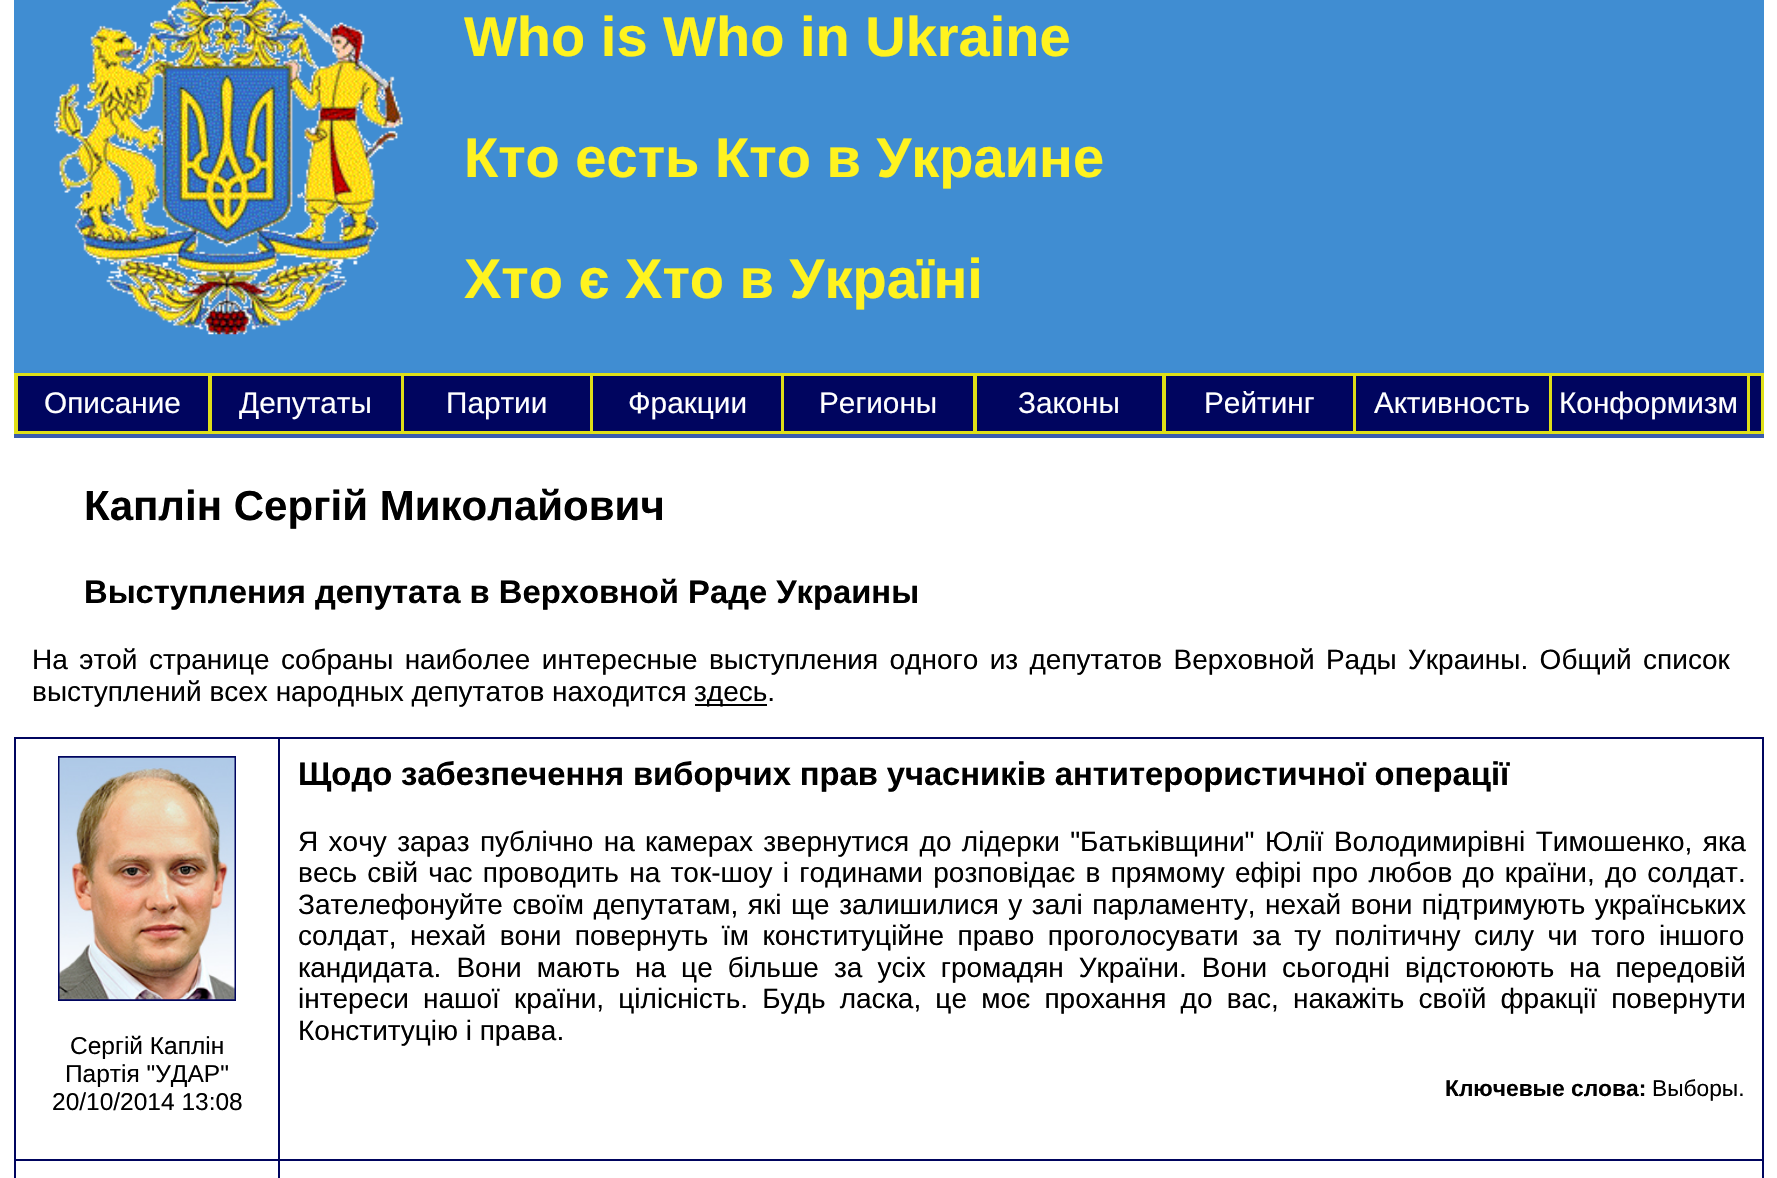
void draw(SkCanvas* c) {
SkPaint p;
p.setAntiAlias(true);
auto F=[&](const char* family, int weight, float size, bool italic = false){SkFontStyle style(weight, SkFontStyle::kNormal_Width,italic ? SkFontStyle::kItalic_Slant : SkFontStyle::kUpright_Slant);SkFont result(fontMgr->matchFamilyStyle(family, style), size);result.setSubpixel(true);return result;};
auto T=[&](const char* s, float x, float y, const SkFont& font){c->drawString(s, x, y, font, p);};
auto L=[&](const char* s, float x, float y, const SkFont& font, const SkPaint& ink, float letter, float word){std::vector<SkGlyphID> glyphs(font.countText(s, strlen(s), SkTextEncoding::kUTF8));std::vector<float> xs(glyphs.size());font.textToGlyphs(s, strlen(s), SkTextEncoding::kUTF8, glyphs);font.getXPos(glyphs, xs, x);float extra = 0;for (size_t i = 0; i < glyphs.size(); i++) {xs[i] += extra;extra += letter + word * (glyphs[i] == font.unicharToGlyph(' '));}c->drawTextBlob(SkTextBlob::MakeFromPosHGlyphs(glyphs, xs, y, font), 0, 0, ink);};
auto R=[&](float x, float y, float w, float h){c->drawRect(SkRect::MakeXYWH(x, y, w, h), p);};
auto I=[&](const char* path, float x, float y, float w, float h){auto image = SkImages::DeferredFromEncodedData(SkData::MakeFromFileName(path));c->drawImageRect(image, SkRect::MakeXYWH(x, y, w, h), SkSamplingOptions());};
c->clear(0xffffffff);
p.setColor(0xff408dd2);
R(14,0,1750,373);
I("1.png",54,0,349,335);
auto f1 = F("Liberation Sans",700,56);
p.setColor(0xfffff31f);
T("Who is Who in Ukraine",464,56,f1);
T("Кто есть Кто в Украине",464,177,f1);
T("Хто є Хто в Україні",464,298,f1);
p.setColor(0xffdfdf18);
R(14,373,1750,61);
p.setColor(0xff3a5baf);
R(14,434,1750,4);
p.setColor(0xff00055f);
R(18,376,190,55);
auto f2 = F("Liberation Sans",400,29.75);
p.setColor(0xffffffff);
T("Описание",44,413,f2);
p.setColor(0xff00055f);
R(212,376,189,55);
p.setColor(0xffffffff);
T("Депутаты",239,413,f2);
p.setColor(0xff00055f);
R(404,376,186,55);
p.setColor(0xffffffff);
T("Партии",446,413,f2);
p.setColor(0xff00055f);
R(593,376,188,55);
p.setColor(0xffffffff);
T("Фракции",628,413,f2);
p.setColor(0xff00055f);
R(784,376,189,55);
p.setColor(0xffffffff);
T("Регионы",819,413,f2);
p.setColor(0xff00055f);
R(977,376,185,55);
p.setColor(0xffffffff);
T("Законы",1018,413,f2);
p.setColor(0xff00055f);
R(1166,376,187,55);
p.setColor(0xffffffff);
T("Рейтинг",1204,413,f2);
p.setColor(0xff00055f);
R(1356,376,193,55);
p.setColor(0xffffffff);
T("Активность",1374,413,f2);
p.setColor(0xff00055f);
R(1552,376,195,55);
p.setColor(0xffffffff);
T("Конформизм",1559,413,f2);
p.setColor(0xff00055f);
R(1750,376,11,55);
auto f3 = F("Liberation Sans",700,42);
p.setColor(0xff000000);
T("Каплін Сергій Миколайович",84,520,f3);
auto f4 = F("Liberation Sans",700,32.75);
T("Выступления депутата в Верховной Раде Украины",84,603,f4);
auto f5 = F("Liberation Sans",400,28);
L("На этой странице собраны наиболее интересные выступления одного из депутатов Верховной Рады Украины. Общий список",32,669,f5,p,0,3.6);
T("выступлений всех народных депутатов находится",32,701,f5);
R(695,704,72,2);
T("здесь.",694,701,f5);
p.setColor(0xff00055f);
R(278,737,1486,2);
R(278,1159,1486,2);
R(278,1159,2,19);
R(14,1159,266,2);
R(278,737,2,423);
R(14,737,266,2);
R(14,1159,2,19);
R(14,737,2,423);
p.setStroke(true);
p.setStrokeWidth(2);
c->drawRect(SkRect::MakeXYWH(59,757,176,243),p);
I("2.png",59,757,176,243);
auto f6 = F("Liberation Sans",400,24.5);
p.setStroke(false);
p.setColor(0xff000000);
T("Сергій Каплін",70,1054,f6);
T("Партія \"УДАР\"",65,1082,f6);
T("20/10/2014 13:08",52,1110,f6);
p.setColor(0xff00055f);
R(1762,1159,2,19);
R(1762,737,2,423);
p.setColor(0xff000000);
L("Щодо забезпечення виборчих прав учасників антитерористичної операції",298,785,f4,p,0,-.25);
L("Я хочу зараз публічно на камерах звернутися до лідерки \"Батьківщини\" Юлії Володимирівні Тимошенко, яка",298,851,f5,p,0,2.6);
L("весь свій час проводить на ток-шоу і годинами розповідає в прямому ефірі про любов до країни, до солдат.",298,882,f5,p,0,2.5);
L("Зателефонуйте своїм депутатам, які ще залишилися у залі парламенту, нехай вони підтримують українських",298,914,f5,p,0,1.75);
L("солдат, нехай вони повернуть їм конституційне право проголосувати за ту політичну силу чи того іншого",298,945,f5,p,0,5.75);
L("кандидата. Вони мають на це більше за усіх громадян України. Вони сьогодні відстоюють на передовій",298,977,f5,p,0,7.25);
L("інтереси нашої країни, цілісність. Будь ласка, це моє прохання до вас, накажіть своїй фракції повернути",298,1008,f5,p,0,6.4);
T("Конституцію і права.",298,1040,f5);
auto f7 = F("Liberation Sans",700,22.75);
T("Ключевые слова:",1445,1096,f7);
auto f8 = F("Liberation Sans",400,22.75);
T("Выборы.",1652,1096,f8);
}
